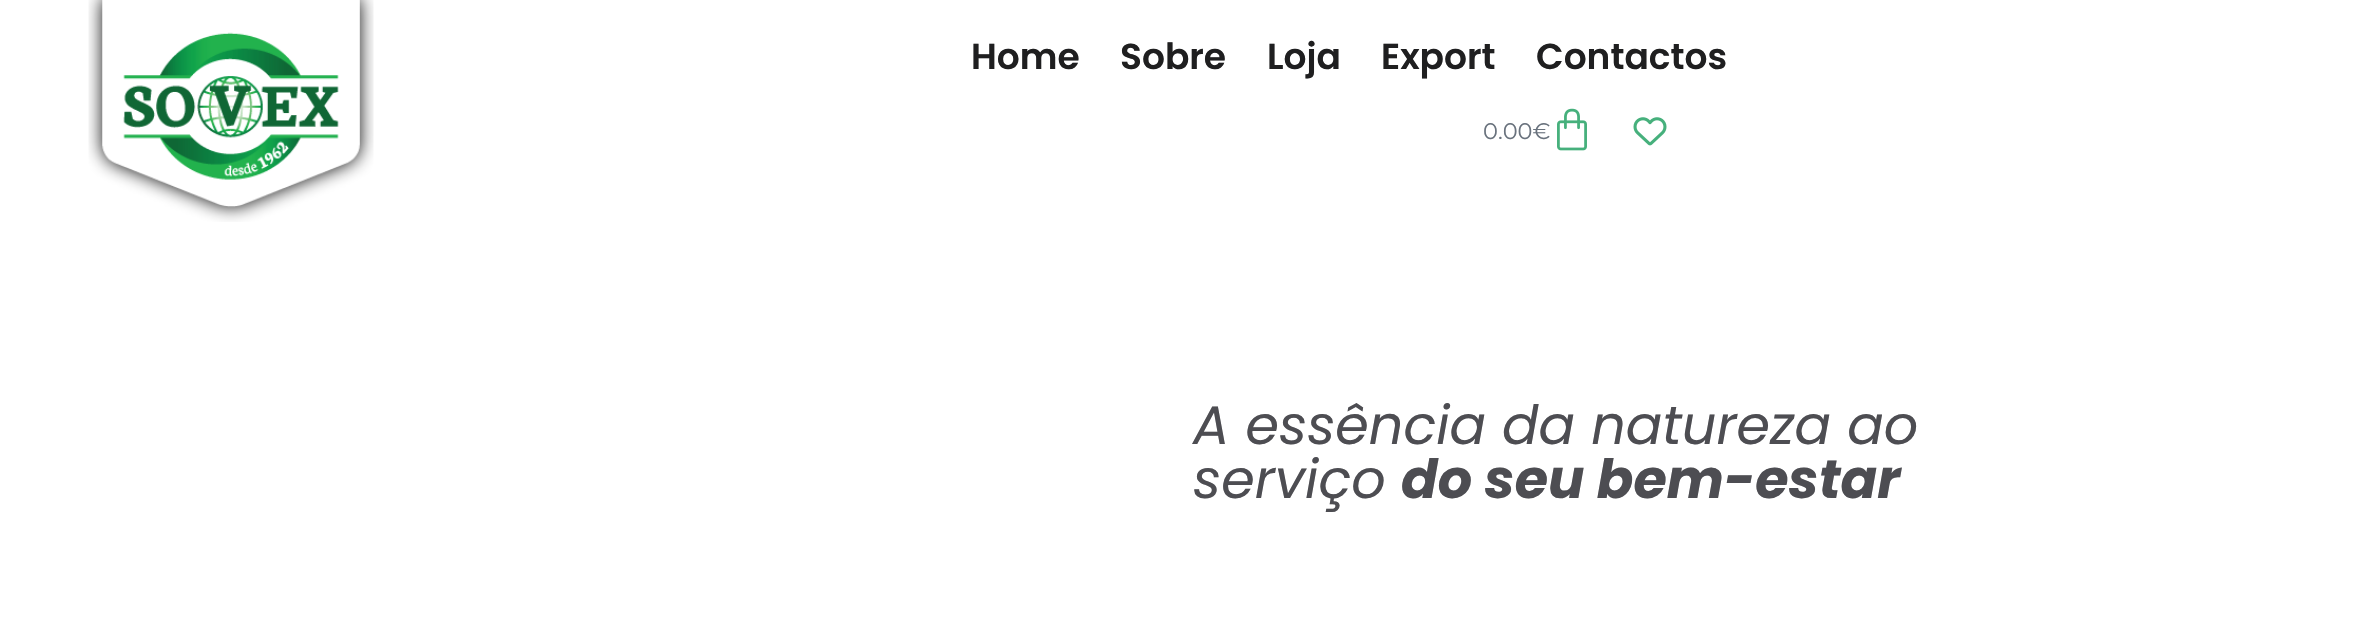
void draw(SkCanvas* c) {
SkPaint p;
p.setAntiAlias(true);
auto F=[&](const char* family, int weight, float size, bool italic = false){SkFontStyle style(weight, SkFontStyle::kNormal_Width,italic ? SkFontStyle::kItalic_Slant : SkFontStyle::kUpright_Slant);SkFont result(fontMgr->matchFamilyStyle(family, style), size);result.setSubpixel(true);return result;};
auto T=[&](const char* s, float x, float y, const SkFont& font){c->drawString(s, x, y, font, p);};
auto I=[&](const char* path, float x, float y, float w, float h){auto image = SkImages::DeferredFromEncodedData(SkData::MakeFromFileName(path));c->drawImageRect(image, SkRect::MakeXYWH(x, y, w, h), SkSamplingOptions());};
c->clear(0xffffffff);
I("1.png",88,0,286,222);
auto f1 = F("Poppins",600,36);
p.setColor(0xff1f1f20);
T("Home",971,69,f1);
T("Sobre",1120,69,f1);
T("Loja",1267,69,f1);
T("Export",1381,69,f1);
T("Contactos",1536,69,f1);
auto f2 = F("Montserrat",400,22.5);
p.setColor(0xff69727d);
T("0.00€",1483,139,f2);
I("2.png",1557,108,30,43);
I("3.png",1633,117,34,29);
auto f3 = F("Poppins",400,54,true);
p.setColor(0xff4d4d52);
T("A essência da natureza ao",1193,444,f3);
T("serviço",1193,498,f3);
auto f4 = F("Poppins",700,54,true);
T("do seu bem-estar",1401,498,f4);
}
